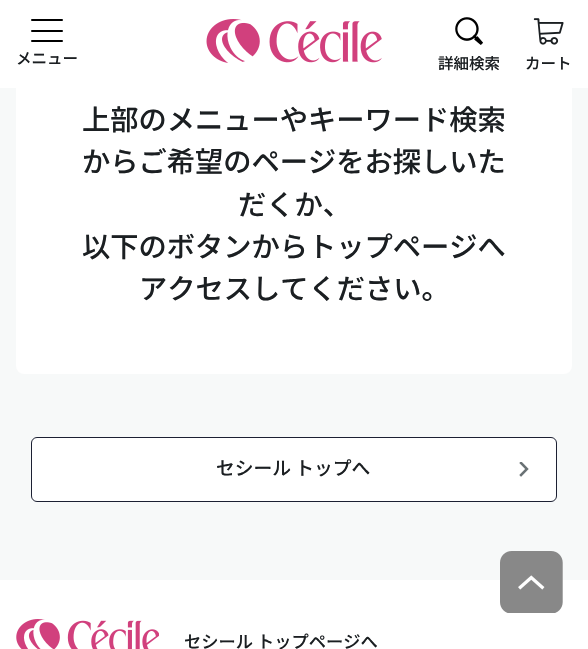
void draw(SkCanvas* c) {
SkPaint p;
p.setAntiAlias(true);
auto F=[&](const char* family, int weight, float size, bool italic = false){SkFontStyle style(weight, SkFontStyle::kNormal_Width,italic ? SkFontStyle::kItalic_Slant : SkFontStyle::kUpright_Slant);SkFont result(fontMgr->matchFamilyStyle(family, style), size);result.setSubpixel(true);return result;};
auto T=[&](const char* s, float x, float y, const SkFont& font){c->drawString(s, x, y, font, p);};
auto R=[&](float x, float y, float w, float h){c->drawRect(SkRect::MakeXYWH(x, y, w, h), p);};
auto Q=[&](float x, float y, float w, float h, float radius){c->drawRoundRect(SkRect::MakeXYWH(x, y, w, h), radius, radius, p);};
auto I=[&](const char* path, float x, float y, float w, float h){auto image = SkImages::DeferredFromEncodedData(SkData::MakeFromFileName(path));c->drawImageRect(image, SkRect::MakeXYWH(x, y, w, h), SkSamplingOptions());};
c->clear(0xffffffff);
p.setColor(0xfff7f9f9);
R(0,88,588,492);
p.setColor(0xffffffff);
Q(16,-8,556,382,8);
p.setColor(0xff000000);
Q(31,19,32,2,1);
Q(31,30,32,2,1);
Q(31,40,32,2,1);
auto f1 = F("Noto Sans JP",500,15.5);
p.setColor(0xff1b1f22);
T("メニュー",16,64,f1);
I("1.png",206,19,176,44);
I("2.png",455,17,28,28);
T("詳細検索",438,69,f1);
I("3.png",533,18,31,27);
T("カート",525,69,f1);
auto f2 = F("Noto Sans JP",500,28.25);
T("上部のメニューやキーワード検索",82,130,f2);
T("からご希望のページをお探しいた",82,172,f2);
T("だくか、",238,215,f2);
T("以下のボタンからトップページへ",82,257,f2);
T("アクセスしてください。",139,299,f2);
p.setColor(0xffffffff);
c->drawRoundRect(SkRect::MakeXYWH(31.5,437.5,525,64),5.5,5.5,p);
p.setStroke(true);
p.setStrokeWidth(1);
p.setColor(0xff1c2033);
c->drawRoundRect(SkRect::MakeXYWH(31.5,437.5,525,64),5.5,5.5,p);
auto f3 = F("Noto Sans JP",500,18.75);
p.setStroke(false);
p.setColor(0xff1b1f22);
T("セシール トップへ",216,475,f3);
I("4.png",519,462,10,15);
I("5.png",500,551,63,62);
I("6.png",16,619,143,30);
auto f4 = F("Noto Sans JP",500,17.25);
T("セシール トップページへ",184,648,f4);
}
